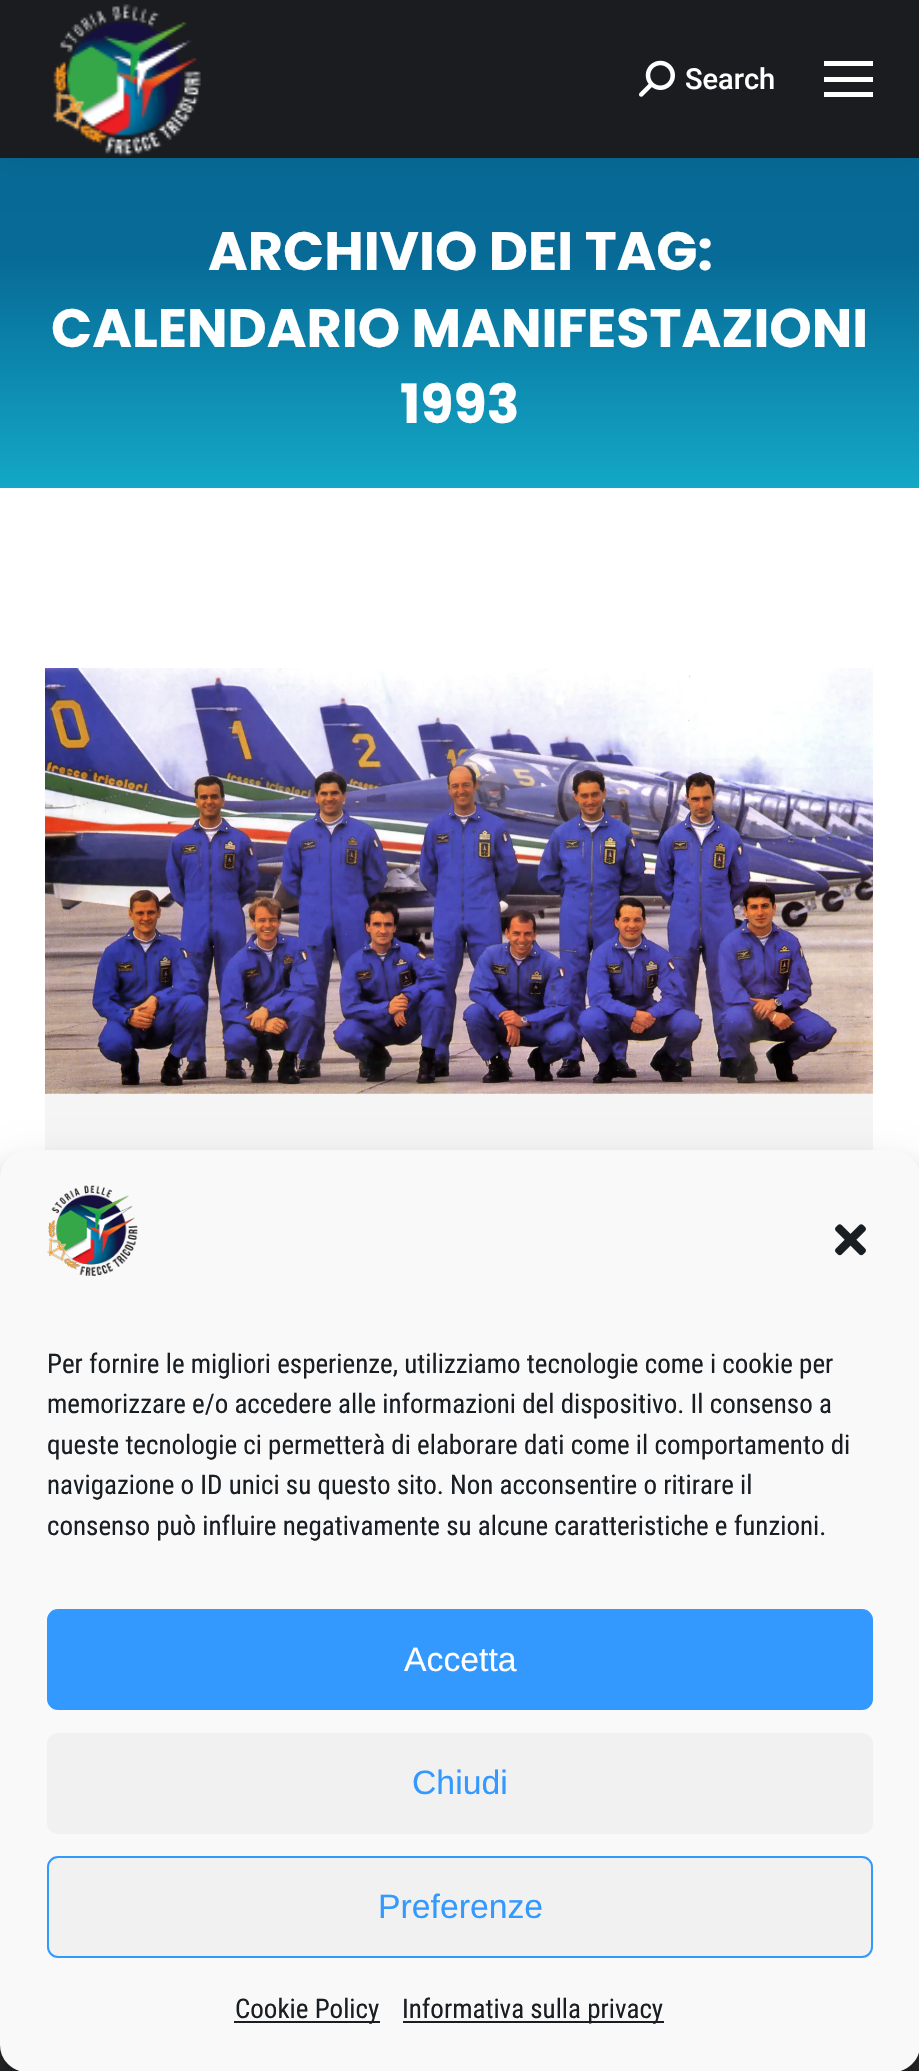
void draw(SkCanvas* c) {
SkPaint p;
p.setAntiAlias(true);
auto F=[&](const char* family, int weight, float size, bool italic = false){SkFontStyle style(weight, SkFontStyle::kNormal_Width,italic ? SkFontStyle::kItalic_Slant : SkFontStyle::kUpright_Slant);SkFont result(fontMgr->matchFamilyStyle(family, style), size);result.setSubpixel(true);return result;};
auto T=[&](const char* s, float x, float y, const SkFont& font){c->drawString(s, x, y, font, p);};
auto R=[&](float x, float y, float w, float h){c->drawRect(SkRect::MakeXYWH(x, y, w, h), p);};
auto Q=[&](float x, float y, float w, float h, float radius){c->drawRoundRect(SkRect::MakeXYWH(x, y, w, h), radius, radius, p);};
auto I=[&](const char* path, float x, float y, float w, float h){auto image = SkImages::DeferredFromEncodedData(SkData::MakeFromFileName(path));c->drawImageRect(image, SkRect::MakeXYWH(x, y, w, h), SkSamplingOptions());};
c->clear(0xffffffff);
{
const SkColor colors[] = {0xff076a97,0xff13a8c6};
const float stops[] = {.3,1};
const SkPoint ends[] = {{460,157}, {460,488}};
p.setShader(SkGradientShader::MakeLinear(ends, colors, stops, 2, SkTileMode::kClamp));
p.setAlpha(255);
}
R(0,158,919,330);
p.setShader(nullptr);
p.setColor(0x12000000);
p.setMaskFilter(SkMaskFilter::MakeBlur(kNormal_SkBlurStyle, 17));
c->drawRect(SkRect::MakeXYWH(-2,-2,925,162),p);
p.setMaskFilter(nullptr);
p.setColor(0xff1a1c20);
R(0,0,919,158);
I("1.png",52,4,149,152);
I("2.png",639,60,36,37);
auto f1 = F("Roboto",500,29);
p.setColor(0xffffffff);
T("Search",685,89,f1);
R(824,61,49,5);
R(824,77,49,5);
R(824,92,49,5);
auto f2 = F("Poppins",700,54);
T("ARCHIVIO DEI TAG:",208,270,f2);
T("CALENDARIO MANIFESTAZIONI",51,347,f2);
T("1993",400,423,f2);
p.setColor(0xfff5f5f5);
R(45,1093,828,57);
I("3.png",45,668,828,426);
p.setColor(0xff282a2d);
R(0,2045,919,26);
p.setColor(0x3b000000);
p.setMaskFilter(SkMaskFilter::MakeBlur(kNormal_SkBlurStyle, 7));
c->drawRoundRect(SkRect::MakeXYWH(0,1163,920,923),27,27,p);
p.setMaskFilter(nullptr);
p.setColor(0x30000000);
p.setMaskFilter(SkMaskFilter::MakeBlur(kNormal_SkBlurStyle, 22.5));
c->drawRoundRect(SkRect::MakeXYWH(0,1172,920,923),27,27,p);
p.setMaskFilter(nullptr);
p.setColor(0xfff9f9f9);
c->drawRoundRect(SkRect::MakeXYWH(1,1151,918,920),26,26,p);
p.setStroke(true);
p.setStrokeWidth(2);
c->drawRoundRect(SkRect::MakeXYWH(1,1151,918,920),26,26,p);
I("4.png",47,1185,91,91);
I("5.png",835,1224,31,32);
auto f3 = F("Roboto Condensed",400,27);
p.setStroke(false);
p.setColor(0xff191e23);
T("Per fornire le migliori esperienze, utilizziamo tecnologie come i cookie per",47,1373,f3);
T("memorizzare e/o accedere alle informazioni del dispositivo. Il consenso a",47,1413,f3);
T("queste tecnologie ci permetterà di elaborare dati come il comportamento di",47,1454,f3);
T("navigazione o ID unici su questo sito. Non acconsentire o ritirare il",47,1494,f3);
T("consenso può influire negativamente su alcune caratteristiche e funzioni.",47,1535,f3);
p.setColor(0xff3399ff);
c->drawRoundRect(SkRect::MakeXYWH(48,1610,824,99),10,10,p);
p.setStroke(true);
c->drawRoundRect(SkRect::MakeXYWH(48,1610,824,99),10,10,p);
auto f4 = F("Liberation Sans",400,33.75);
p.setStroke(false);
p.setColor(0xffffffff);
T("Accetta",404,1671,f4);
p.setColor(0xfff1f1f1);
Q(47,1733,826,101,11);
p.setColor(0xff3399ff);
T("Chiudi",412,1794,f4);
p.setColor(0xfff1f1f1);
c->drawRoundRect(SkRect::MakeXYWH(48,1857,824,100),10,10,p);
p.setStroke(true);
p.setColor(0xff3399ff);
c->drawRoundRect(SkRect::MakeXYWH(48,1857,824,100),10,10,p);
p.setStroke(false);
T("Preferenze",378,1918,f4);
p.setColor(0xff191e23);
R(234,2021,146,2);
T("Cookie Policy",235,2018,f3);
R(403,2021,261,2);
T("Informativa sulla privacy",402,2018,f3);
}
